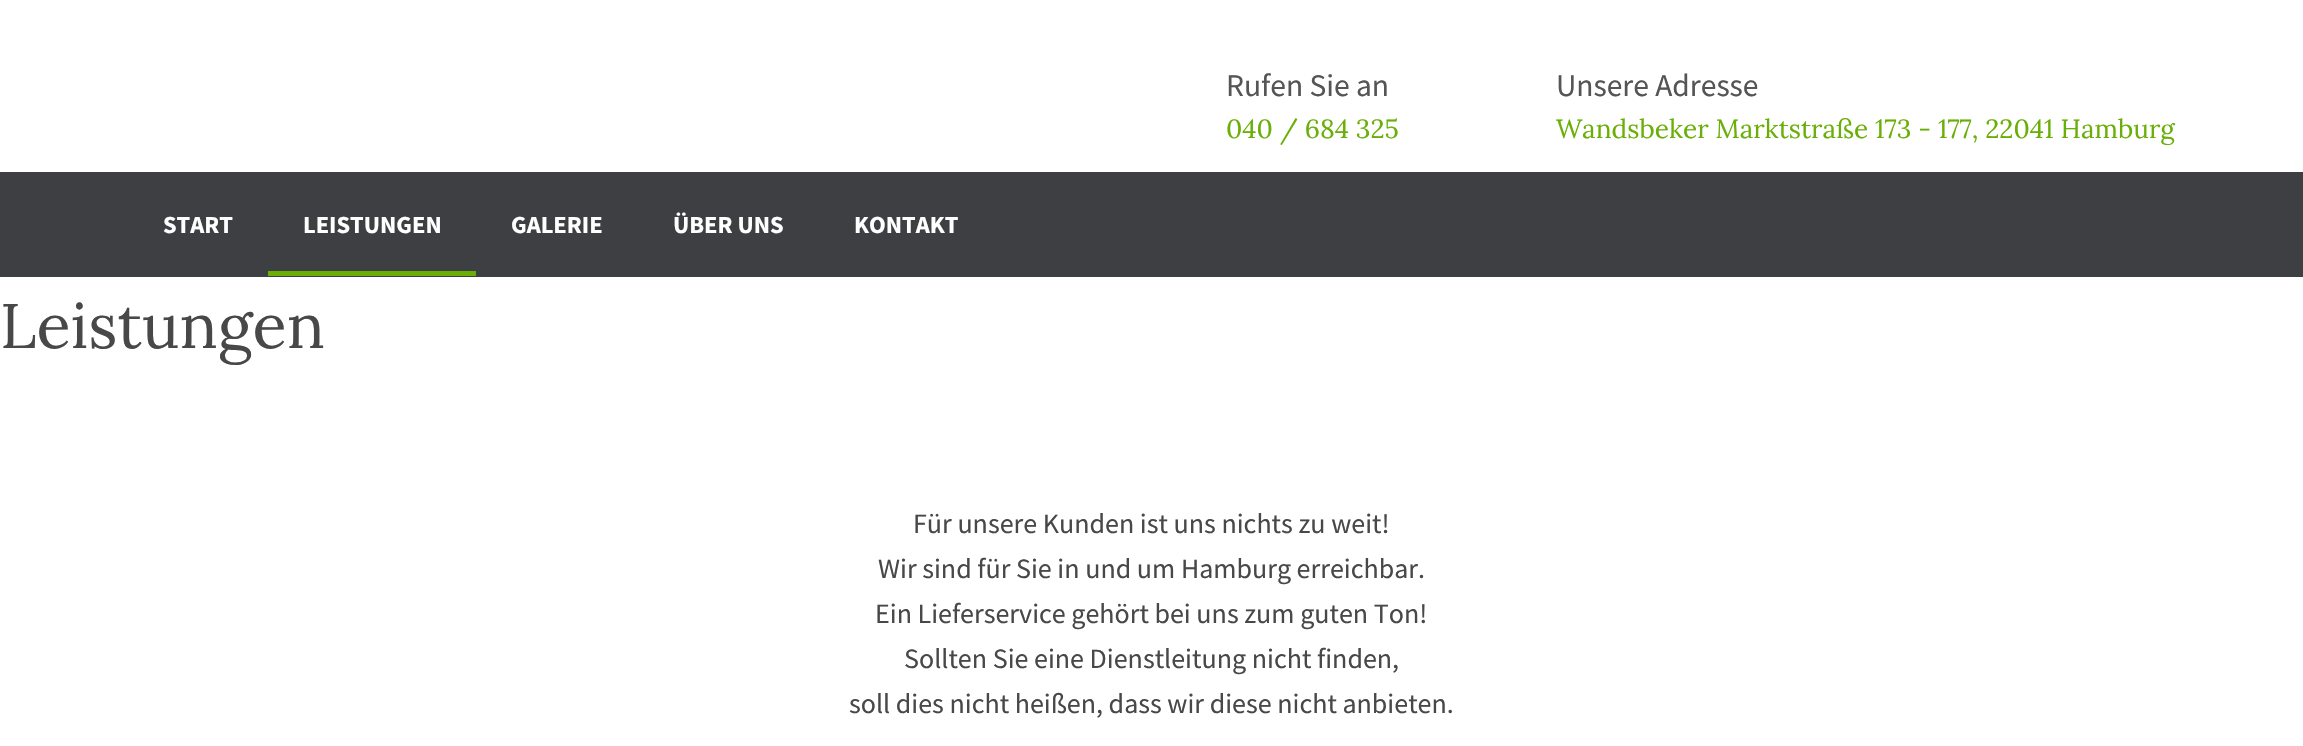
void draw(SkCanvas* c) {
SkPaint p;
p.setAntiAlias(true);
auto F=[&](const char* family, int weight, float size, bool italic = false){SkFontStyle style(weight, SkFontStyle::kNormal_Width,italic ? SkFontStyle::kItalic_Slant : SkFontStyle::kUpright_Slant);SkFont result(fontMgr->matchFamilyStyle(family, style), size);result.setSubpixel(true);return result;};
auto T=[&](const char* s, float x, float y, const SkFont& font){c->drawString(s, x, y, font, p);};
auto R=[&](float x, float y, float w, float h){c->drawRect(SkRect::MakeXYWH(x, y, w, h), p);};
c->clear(0xffffffff);
auto f1 = F("Source Sans Pro",400,31.5);
p.setColor(0xff555555);
T("Rufen Sie an",1226,96,f1);
auto f2 = F("Lora",400,26.25);
p.setColor(0xff6aaf08);
T("040 / 684 325",1226,138,f2);
p.setColor(0xff555555);
T("Unsere Adresse",1556,96,f1);
p.setColor(0xff6aaf08);
T("Wandsbeker Marktstraße 173 - 177, 22041 Hamburg",1556,138,f2);
p.setColor(0xff3d3f43);
R(0,172,2303,105);
auto f3 = F("Source Sans Pro",700,24.5);
p.setColor(0xffffffff);
T("START",163,233,f3);
p.setColor(0xff6aaf08);
R(268,271,208,5);
p.setColor(0xffffffff);
T("LEISTUNGEN",303,233,f3);
T("GALERIE",511,233,f3);
T("ÜBER UNS",673,233,f3);
T("KONTAKT",854,233,f3);
auto f4 = F("Lora",400,63);
p.setColor(0xff484848);
T("Leistungen",0,348,f4);
auto f5 = F("Source Sans Pro",400,28);
T("Für unsere Kunden ist uns nichts zu weit!",913,533,f5);
T("Wir sind für Sie in und um Hamburg erreichbar.",878,578,f5);
T("Ein Lieferservice gehört bei uns zum guten Ton!",875,623,f5);
T("Sollten Sie eine Dienstleitung nicht finden,",904,668,f5);
T("soll dies nicht heißen, dass wir diese nicht anbieten.",849,713,f5);
}
